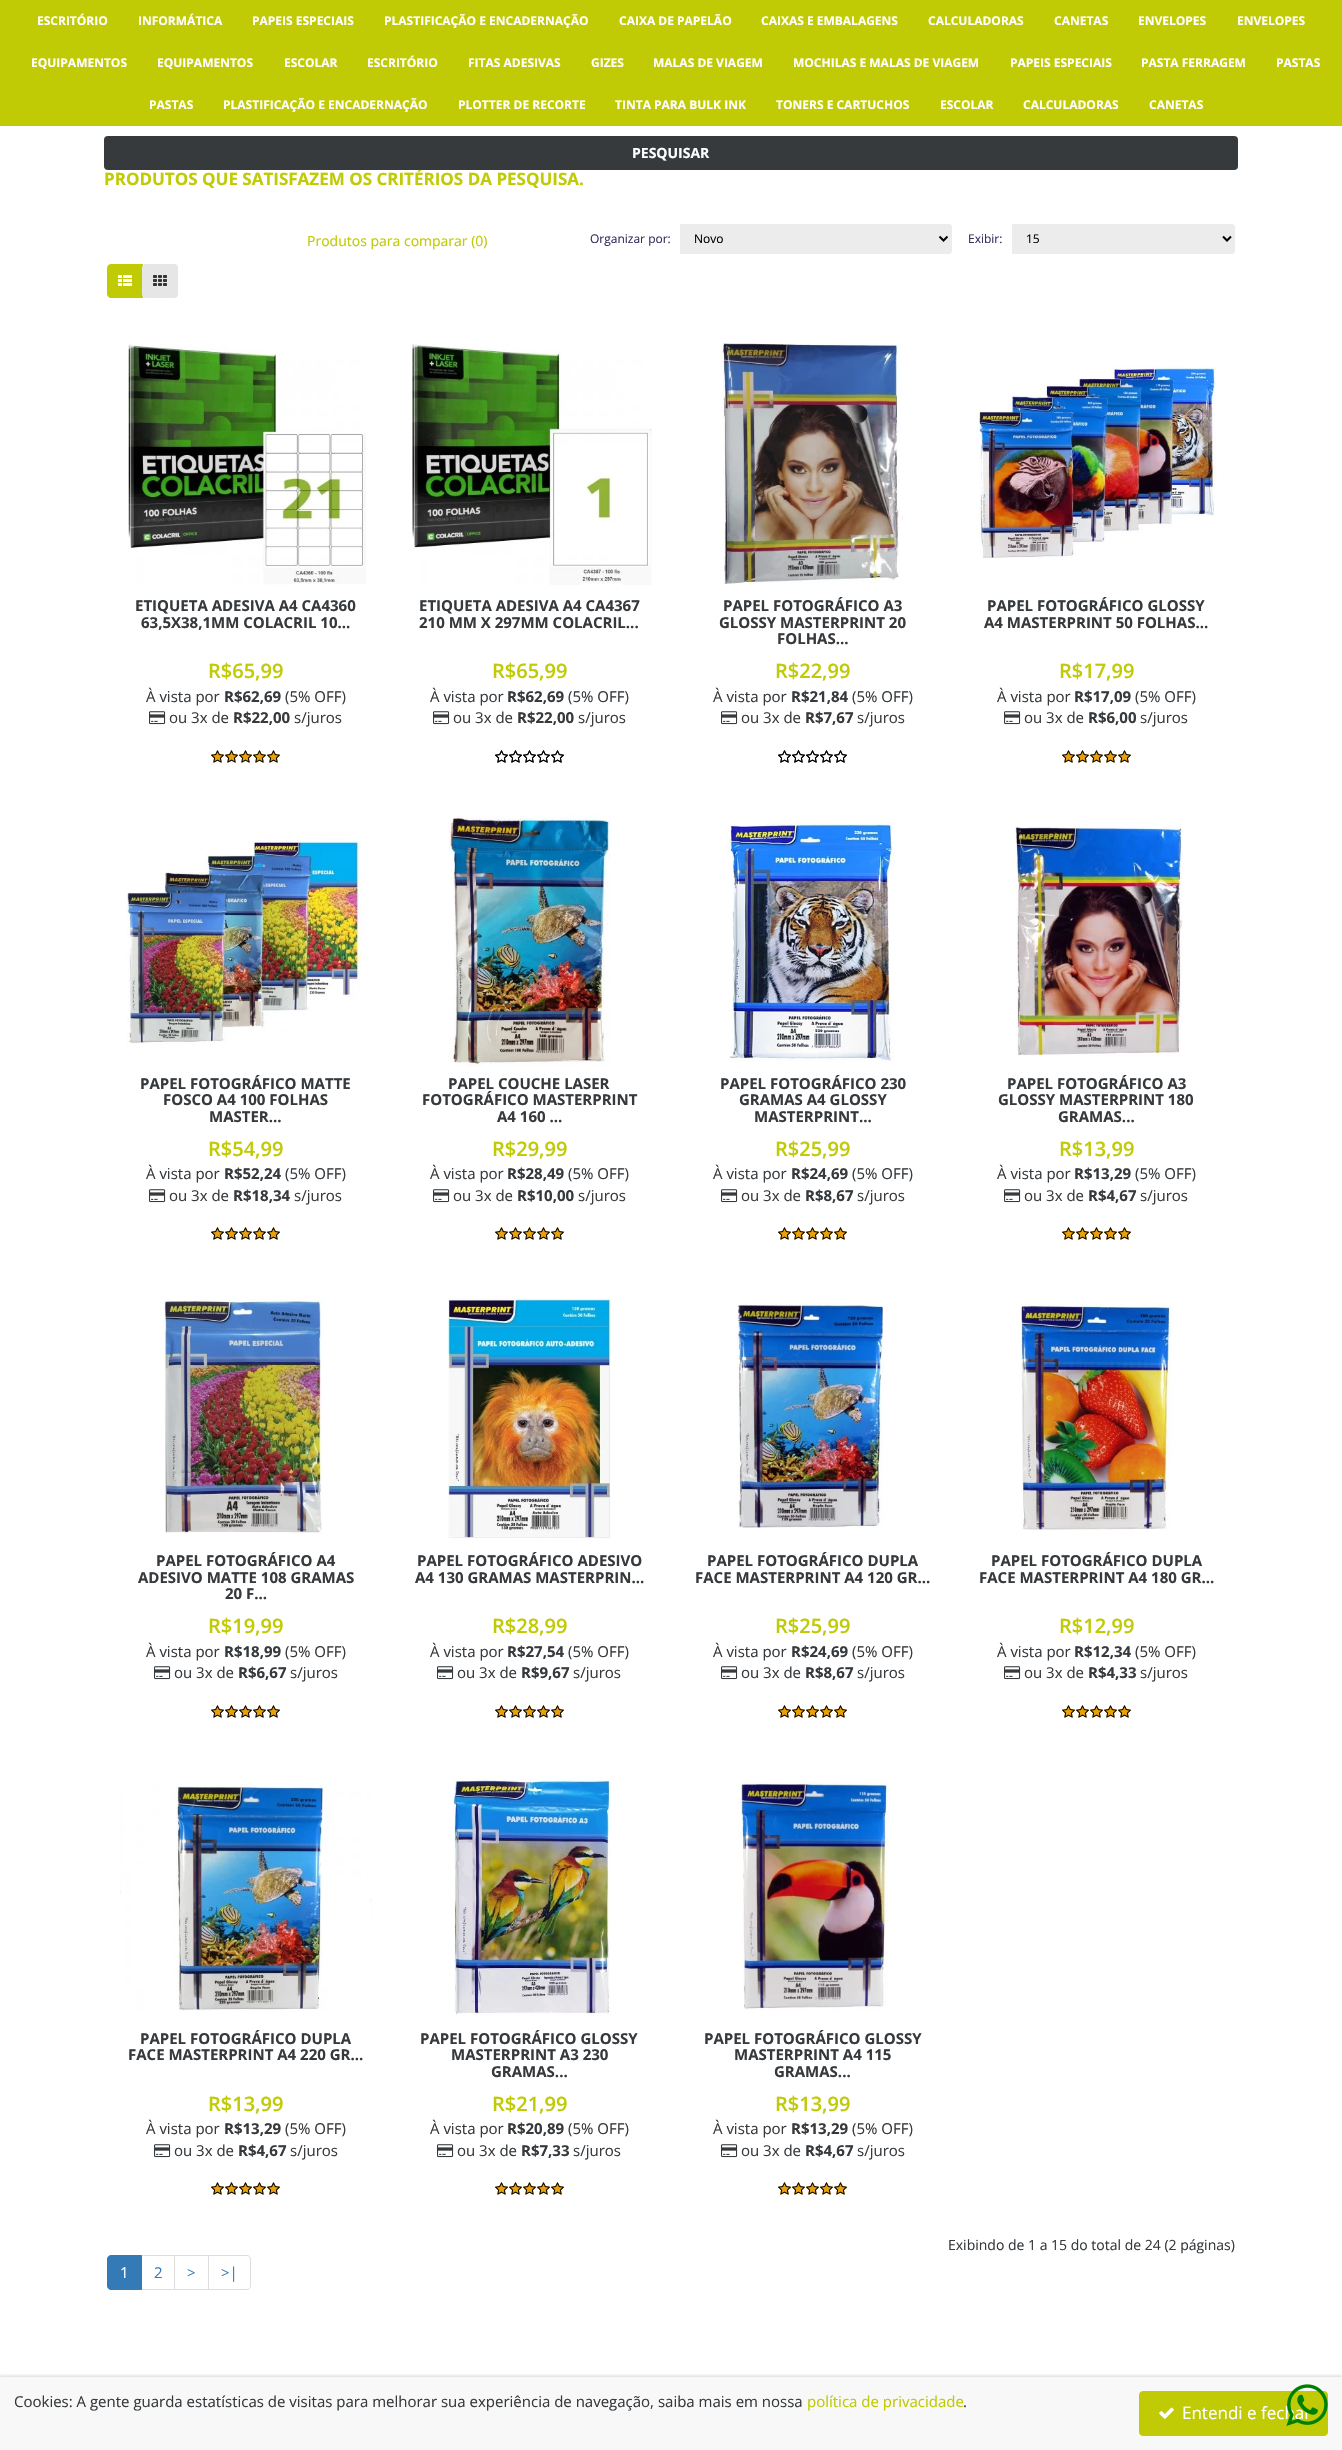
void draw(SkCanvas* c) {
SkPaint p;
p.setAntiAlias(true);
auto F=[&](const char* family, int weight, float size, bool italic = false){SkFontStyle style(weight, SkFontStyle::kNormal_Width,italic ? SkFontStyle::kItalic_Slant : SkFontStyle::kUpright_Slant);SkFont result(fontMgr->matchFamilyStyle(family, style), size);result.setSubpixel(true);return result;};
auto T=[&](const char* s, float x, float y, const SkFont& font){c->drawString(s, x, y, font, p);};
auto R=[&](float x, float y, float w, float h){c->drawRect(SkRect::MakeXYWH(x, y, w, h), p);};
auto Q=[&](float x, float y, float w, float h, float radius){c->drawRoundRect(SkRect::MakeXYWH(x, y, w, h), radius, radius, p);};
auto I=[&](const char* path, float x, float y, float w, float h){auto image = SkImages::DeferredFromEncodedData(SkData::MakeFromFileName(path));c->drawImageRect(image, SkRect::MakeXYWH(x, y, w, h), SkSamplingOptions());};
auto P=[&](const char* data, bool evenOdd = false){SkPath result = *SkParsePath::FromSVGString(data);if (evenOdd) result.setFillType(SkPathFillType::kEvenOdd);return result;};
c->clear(0xffffffff);
p.setColor(0xffc0ca05);
R(0,0,1342,126);
auto f1 = F("Open Sans",700,12);
p.setColor(0xffffffff);
T("ESCRITÓRIO",37,25,f1);
T("INFORMÁTICA",138,25,f1);
T("PAPEIS ESPECIAIS",252,25,f1);
T("PLASTIFICAÇÃO E ENCADERNAÇÃO",384,25,f1);
T("CAIXA DE PAPELÃO",619,25,f1);
T("CAIXAS E EMBALAGENS",761,25,f1);
T("CALCULADORAS",928,25,f1);
T("CANETAS",1054,25,f1);
T("ENVELOPES",1138,25,f1);
T("ENVELOPES",1237,25,f1);
T("EQUIPAMENTOS",31,67,f1);
T("EQUIPAMENTOS",157,67,f1);
T("ESCOLAR",284,67,f1);
T("ESCRITÓRIO",367,67,f1);
T("FITAS ADESIVAS",468,67,f1);
T("GIZES",591,67,f1);
T("MALAS DE VIAGEM",653,67,f1);
T("MOCHILAS E MALAS DE VIAGEM",793,67,f1);
T("PAPEIS ESPECIAIS",1010,67,f1);
T("PASTA FERRAGEM",1141,67,f1);
T("PASTAS",1276,67,f1);
T("PASTAS",149,109,f1);
T("PLASTIFICAÇÃO E ENCADERNAÇÃO",223,109,f1);
T("PLOTTER DE RECORTE",458,109,f1);
T("TINTA PARA BULK INK",615,109,f1);
T("TONERS E CARTUCHOS",776,109,f1);
T("ESCOLAR",940,109,f1);
T("CALCULADORAS",1023,109,f1);
T("CANETAS",1149,109,f1);
auto f2 = F("Open Sans",700,17);
p.setColor(0xffc0ca05);
T("PRODUTOS QUE SATISFAZEM OS CRITÉRIOS DA PESQUISA.",104,185,f2);
p.setColor(0xff363a3d);
Q(104,136,1134,34,4);
auto f3 = F("Open Sans",700,14);
p.setColor(0xffffffff);
T("PESQUISAR",632,158,f3);
auto f4 = F("Open Sans",400,14);
p.setColor(0xffc0ca05);
T("Produtos para comparar (0)",307,246,f4);
auto f5 = F("Open Sans",400,12);
p.setColor(0xff352f61);
T("Organizar por:",590,243,f5);
p.setColor(0xffececec);
c->drawPath(P("M680 224h269c1.5 0 3 1.5 3 3v24c0 1.5-1.5 3-3 3h-269z"),p);
p.setStroke(true);
p.setStrokeWidth(2);
p.setColor(0xff000000);
c->drawPath(P("M939.5 236.5l4 4l4-4"),p);
p.setStroke(false);
T("Novo",694,243,f5);
p.setColor(0xff352f61);
T("Exibir:",968,243,f5);
p.setColor(0xffececec);
c->drawPath(P("M1012 224h220c1.5 0 3 1.5 3 3v24c0 1.5-1.5 3-3 3h-220z"),p);
p.setStroke(true);
p.setColor(0xff000000);
c->drawPath(P("M1223 236.5l4 4l4-4"),p);
p.setStroke(false);
T("15",1026,243,f5);
p.setColor(0xffc0ca05);
c->drawPath(P("M111 264h32v34h-32c-2 0-4-2-4-4v-26c0-2 2-4 4-4z"),p);
I("1.png",118,275,14,11);
p.setColor(0xffe6e6e6);
Q(142,264,36,34,4);
I("2.png",153,275,14,11);
I("3.png",127,344,239,241);
auto f6 = F("Open Sans",700,15);
p.setColor(0xff363a3d);
T("ETIQUETA ADESIVA A4 CA4360",135,611,f6);
T("63,5X38,1MM COLACRIL 10...",141,628,f6);
auto f7 = F("Open Sans",600,20);
p.setColor(0xffc0ca05);
T("R$65,99",208,678,f7);
auto f8 = F("Open Sans",400,15);
p.setColor(0xff363a3d);
T("À vista por",146,702,f8);
T("R$62,69",224,702,f6);
T("(5% OFF)",285,702,f8);
I("4.png",149,711,17,14);
T("ou 3x de",169,723,f8);
T("R$22,00",233,723,f6);
T("s/juros",294,723,f8);
I("5.png",211,750,13,13);
I("6.png",211,750,13,13);
I("5.png",225,750,13,13);
I("6.png",225,750,13,13);
I("5.png",239,750,13,13);
I("6.png",239,750,13,13);
I("5.png",253,750,13,13);
I("6.png",253,750,13,13);
I("5.png",267,750,13,13);
I("6.png",267,750,13,13);
I("7.png",410,344,242,241);
T("ETIQUETA ADESIVA A4 CA4367",419,611,f6);
T("210 MM X 297MM COLACRIL...",419,628,f6);
p.setColor(0xffc0ca05);
T("R$65,99",492,678,f7);
p.setColor(0xff363a3d);
T("À vista por",430,702,f8);
T("R$62,69",507,702,f6);
T("(5% OFF)",568,702,f8);
I("4.png",433,711,17,14);
T("ou 3x de",453,723,f8);
T("R$22,00",517,723,f6);
T("s/juros",578,723,f8);
I("8.png",495,750,13,13);
I("9.png",495,750,13,13);
I("8.png",509,750,13,13);
I("9.png",509,750,13,13);
I("8.png",523,750,13,13);
I("9.png",523,750,13,13);
I("8.png",537,750,13,13);
I("9.png",537,750,13,13);
I("8.png",551,750,13,13);
I("9.png",551,750,13,13);
I("10.png",720,343,183,242);
T("PAPEL FOTOGRÁFICO A3",723,611,f6);
T("GLOSSY MASTERPRINT 20",719,628,f6);
T("FOLHAS...",777,644,f6);
p.setColor(0xffc0ca05);
T("R$22,99",775,678,f7);
p.setColor(0xff363a3d);
T("À vista por",713,702,f8);
T("R$21,84",791,702,f6);
T("(5% OFF)",852,702,f8);
I("4.png",721,711,17,14);
T("ou 3x de",741,723,f8);
T("R$7,67",805,723,f6);
T("s/juros",857,723,f8);
I("8.png",778,750,13,13);
I("9.png",778,750,13,13);
I("8.png",792,750,13,13);
I("9.png",792,750,13,13);
I("8.png",806,750,13,13);
I("9.png",806,750,13,13);
I("8.png",820,750,13,13);
I("9.png",820,750,13,13);
I("8.png",834,750,13,13);
I("9.png",834,750,13,13);
I("11.png",976,366,241,192);
T("PAPEL FOTOGRÁFICO GLOSSY",987,611,f6);
T("A4 MASTERPRINT 50 FOLHAS...",984,628,f6);
p.setColor(0xffc0ca05);
T("R$17,99",1059,678,f7);
p.setColor(0xff363a3d);
T("À vista por",997,702,f8);
T("R$17,09",1074,702,f6);
T("(5% OFF)",1135,702,f8);
I("4.png",1004,711,17,14);
T("ou 3x de",1024,723,f8);
T("R$6,00",1088,723,f6);
T("s/juros",1140,723,f8);
I("5.png",1062,750,13,13);
I("6.png",1062,750,13,13);
I("5.png",1076,750,13,13);
I("6.png",1076,750,13,13);
I("5.png",1090,750,13,13);
I("6.png",1090,750,13,13);
I("5.png",1104,750,13,13);
I("6.png",1104,750,13,13);
I("5.png",1118,750,13,13);
I("6.png",1118,750,13,13);
I("12.png",126,837,240,208);
T("PAPEL FOTOGRÁFICO MATTE",140,1089,f6);
T("FOSCO A4 100 FOLHAS",163,1105,f6);
T("MASTER...",209,1122,f6);
p.setColor(0xffc0ca05);
T("R$54,99",208,1156,f7);
p.setColor(0xff363a3d);
T("À vista por",146,1179,f8);
T("R$52,24",224,1179,f6);
T("(5% OFF)",285,1179,f8);
I("4.png",149,1189,17,14);
T("ou 3x de",169,1201,f8);
T("R$18,34",233,1201,f6);
T("s/juros",294,1201,f8);
I("5.png",211,1227,13,13);
I("6.png",211,1227,13,13);
I("5.png",225,1227,13,13);
I("6.png",225,1227,13,13);
I("5.png",239,1227,13,13);
I("6.png",239,1227,13,13);
I("5.png",253,1227,13,13);
I("6.png",253,1227,13,13);
I("5.png",267,1227,13,13);
I("6.png",267,1227,13,13);
I("13.png",448,815,163,252);
T("PAPEL COUCHE LASER",448,1089,f6);
T("FOTOGRÁFICO MASTERPRINT",422,1105,f6);
T("A4 160 ...",497,1122,f6);
p.setColor(0xffc0ca05);
T("R$29,99",492,1156,f7);
p.setColor(0xff363a3d);
T("À vista por",430,1179,f8);
T("R$28,49",507,1179,f6);
T("(5% OFF)",568,1179,f8);
I("4.png",433,1189,17,14);
T("ou 3x de",453,1201,f8);
T("R$10,00",517,1201,f6);
T("s/juros",578,1201,f8);
I("5.png",495,1227,13,13);
I("6.png",495,1227,13,13);
I("5.png",509,1227,13,13);
I("6.png",509,1227,13,13);
I("5.png",523,1227,13,13);
I("6.png",523,1227,13,13);
I("5.png",537,1227,13,13);
I("6.png",537,1227,13,13);
I("5.png",551,1227,13,13);
I("6.png",551,1227,13,13);
I("14.png",726,821,169,241);
T("PAPEL FOTOGRÁFICO 230",720,1089,f6);
T("GRAMAS A4 GLOSSY",739,1105,f6);
T("MASTERPRINT...",754,1122,f6);
p.setColor(0xffc0ca05);
T("R$25,99",775,1156,f7);
p.setColor(0xff363a3d);
T("À vista por",713,1179,f8);
T("R$24,69",791,1179,f6);
T("(5% OFF)",852,1179,f8);
I("4.png",721,1189,17,14);
T("ou 3x de",741,1201,f8);
T("R$8,67",805,1201,f6);
T("s/juros",857,1201,f8);
I("5.png",778,1227,13,13);
I("6.png",778,1227,13,13);
I("5.png",792,1227,13,13);
I("6.png",792,1227,13,13);
I("5.png",806,1227,13,13);
I("6.png",806,1227,13,13);
I("5.png",820,1227,13,13);
I("6.png",820,1227,13,13);
I("5.png",834,1227,13,13);
I("6.png",834,1227,13,13);
I("15.png",1015,826,168,231);
T("PAPEL FOTOGRÁFICO A3",1007,1089,f6);
T("GLOSSY MASTERPRINT 180",998,1105,f6);
T("GRAMAS...",1058,1122,f6);
p.setColor(0xffc0ca05);
T("R$13,99",1059,1156,f7);
p.setColor(0xff363a3d);
T("À vista por",997,1179,f8);
T("R$13,29",1074,1179,f6);
T("(5% OFF)",1135,1179,f8);
I("4.png",1004,1189,17,14);
T("ou 3x de",1024,1201,f8);
T("R$4,67",1088,1201,f6);
T("s/juros",1140,1201,f8);
I("5.png",1062,1227,13,13);
I("6.png",1062,1227,13,13);
I("5.png",1076,1227,13,13);
I("6.png",1076,1227,13,13);
I("5.png",1090,1227,13,13);
I("6.png",1090,1227,13,13);
I("5.png",1104,1227,13,13);
I("6.png",1104,1227,13,13);
I("5.png",1118,1227,13,13);
I("6.png",1118,1227,13,13);
I("16.png",164,1299,158,235);
T("PAPEL FOTOGRÁFICO A4",156,1566,f6);
T("ADESIVO MATTE 108 GRAMAS",138,1583,f6);
T("20 F...",225,1599,f6);
p.setColor(0xffc0ca05);
T("R$19,99",208,1633,f7);
p.setColor(0xff363a3d);
T("À vista por",146,1657,f8);
T("R$18,99",224,1657,f6);
T("(5% OFF)",285,1657,f8);
I("4.png",154,1666,17,14);
T("ou 3x de",174,1678,f8);
T("R$6,67",238,1678,f6);
T("s/juros",290,1678,f8);
I("5.png",211,1705,13,13);
I("6.png",211,1705,13,13);
I("5.png",225,1705,13,13);
I("6.png",225,1705,13,13);
I("5.png",239,1705,13,13);
I("6.png",239,1705,13,13);
I("5.png",253,1705,13,13);
I("6.png",253,1705,13,13);
I("5.png",267,1705,13,13);
I("6.png",267,1705,13,13);
I("17.png",447,1298,164,241);
T("PAPEL FOTOGRÁFICO ADESIVO",417,1566,f6);
T("A4 130 GRAMAS MASTERPRIN...",415,1583,f6);
p.setColor(0xffc0ca05);
T("R$28,99",492,1633,f7);
p.setColor(0xff363a3d);
T("À vista por",430,1657,f8);
T("R$27,54",507,1657,f6);
T("(5% OFF)",568,1657,f8);
I("4.png",437,1666,17,14);
T("ou 3x de",457,1678,f8);
T("R$9,67",521,1678,f6);
T("s/juros",573,1678,f8);
I("5.png",495,1705,13,13);
I("6.png",495,1705,13,13);
I("5.png",509,1705,13,13);
I("6.png",509,1705,13,13);
I("5.png",523,1705,13,13);
I("6.png",523,1705,13,13);
I("5.png",537,1705,13,13);
I("6.png",537,1705,13,13);
I("5.png",551,1705,13,13);
I("6.png",551,1705,13,13);
I("18.png",737,1304,147,225);
T("PAPEL FOTOGRÁFICO DUPLA",707,1566,f6);
T("FACE MASTERPRINT A4 120 GR...",695,1583,f6);
p.setColor(0xffc0ca05);
T("R$25,99",775,1633,f7);
p.setColor(0xff363a3d);
T("À vista por",713,1657,f8);
T("R$24,69",791,1657,f6);
T("(5% OFF)",852,1657,f8);
I("4.png",721,1666,17,14);
T("ou 3x de",741,1678,f8);
T("R$8,67",805,1678,f6);
T("s/juros",857,1678,f8);
I("5.png",778,1705,13,13);
I("6.png",778,1705,13,13);
I("5.png",792,1705,13,13);
I("6.png",792,1705,13,13);
I("5.png",806,1705,13,13);
I("6.png",806,1705,13,13);
I("5.png",820,1705,13,13);
I("6.png",820,1705,13,13);
I("5.png",834,1705,13,13);
I("6.png",834,1705,13,13);
I("19.png",1020,1304,152,226);
T("PAPEL FOTOGRÁFICO DUPLA",991,1566,f6);
T("FACE MASTERPRINT A4 180 GR...",979,1583,f6);
p.setColor(0xffc0ca05);
T("R$12,99",1059,1633,f7);
p.setColor(0xff363a3d);
T("À vista por",997,1657,f8);
T("R$12,34",1074,1657,f6);
T("(5% OFF)",1135,1657,f8);
I("4.png",1004,1666,17,14);
T("ou 3x de",1024,1678,f8);
T("R$4,33",1088,1678,f6);
T("s/juros",1140,1678,f8);
I("5.png",1062,1705,13,13);
I("6.png",1062,1705,13,13);
I("5.png",1076,1705,13,13);
I("6.png",1076,1705,13,13);
I("5.png",1090,1705,13,13);
I("6.png",1090,1705,13,13);
I("5.png",1104,1705,13,13);
I("6.png",1104,1705,13,13);
I("5.png",1118,1705,13,13);
I("6.png",1118,1705,13,13);
I("20.png",120,1786,252,225);
T("PAPEL FOTOGRÁFICO DUPLA",140,2044,f6);
T("FACE MASTERPRINT A4 220 GR...",128,2060,f6);
p.setColor(0xffc0ca05);
T("R$13,99",208,2111,f7);
p.setColor(0xff363a3d);
T("À vista por",146,2134,f8);
T("R$13,29",224,2134,f6);
T("(5% OFF)",285,2134,f8);
I("4.png",154,2144,17,14);
T("ou 3x de",174,2156,f8);
T("R$4,67",238,2156,f6);
T("s/juros",290,2156,f8);
I("5.png",211,2182,13,13);
I("6.png",211,2182,13,13);
I("5.png",225,2182,13,13);
I("6.png",225,2182,13,13);
I("5.png",239,2182,13,13);
I("6.png",239,2182,13,13);
I("5.png",253,2182,13,13);
I("6.png",253,2182,13,13);
I("5.png",267,2182,13,13);
I("6.png",267,2182,13,13);
I("21.png",453,1776,158,241);
T("PAPEL FOTOGRÁFICO GLOSSY",420,2044,f6);
T("MASTERPRINT A3 230",451,2060,f6);
T("GRAMAS...",491,2077,f6);
p.setColor(0xffc0ca05);
T("R$21,99",492,2111,f7);
p.setColor(0xff363a3d);
T("À vista por",430,2134,f8);
T("R$20,89",507,2134,f6);
T("(5% OFF)",568,2134,f8);
I("4.png",437,2144,17,14);
T("ou 3x de",457,2156,f8);
T("R$7,33",521,2156,f6);
T("s/juros",573,2156,f8);
I("5.png",495,2182,13,13);
I("6.png",495,2182,13,13);
I("5.png",509,2182,13,13);
I("6.png",509,2182,13,13);
I("5.png",523,2182,13,13);
I("6.png",523,2182,13,13);
I("5.png",537,2182,13,13);
I("6.png",537,2182,13,13);
I("5.png",551,2182,13,13);
I("6.png",551,2182,13,13);
I("22.png",738,1781,151,230);
T("PAPEL FOTOGRÁFICO GLOSSY",704,2044,f6);
T("MASTERPRINT A4 115",734,2060,f6);
T("GRAMAS...",774,2077,f6);
p.setColor(0xffc0ca05);
T("R$13,99",775,2111,f7);
p.setColor(0xff363a3d);
T("À vista por",713,2134,f8);
T("R$13,29",791,2134,f6);
T("(5% OFF)",852,2134,f8);
I("4.png",721,2144,17,14);
T("ou 3x de",741,2156,f8);
T("R$4,67",805,2156,f6);
T("s/juros",857,2156,f8);
I("5.png",778,2182,13,13);
I("6.png",778,2182,13,13);
I("5.png",792,2182,13,13);
I("6.png",792,2182,13,13);
I("5.png",806,2182,13,13);
I("6.png",806,2182,13,13);
I("5.png",820,2182,13,13);
I("6.png",820,2182,13,13);
I("5.png",834,2182,13,13);
I("6.png",834,2182,13,13);
T("Exibindo de 1 a 15 do total de 24 (2 páginas)",948,2250,f4);
p.setStroke(true);
p.setStrokeWidth(1);
p.setColor(0xffdddddd);
c->drawRect(SkRect::MakeXYWH(141.5,2255.5,33,34),p);
p.setStroke(false);
p.setColor(0xff337ab7);
c->drawPath(P("M111 2255.5h30.5v34h-30.5c-2 0-3.5-1.5-3.5-3.5v-27c0-2 1.5-3.5 3.5-3.5z"),p);
p.setStroke(true);
c->drawPath(P("M111 2255.5h30.5v34h-30.5c-2 0-3.5-1.5-3.5-3.5v-27c0-2 1.5-3.5 3.5-3.5z"),p);
p.setStroke(false);
p.setColor(0xffffffff);
T("1",120,2278,f8);
p.setColor(0xff337ab7);
T("2",154,2278,f8);
p.setStroke(true);
p.setColor(0xffdddddd);
c->drawRect(SkRect::MakeXYWH(174.5,2255.5,34,34),p);
p.setStroke(false);
p.setColor(0xff337ab7);
T(">",187,2278,f8);
p.setColor(0xffffffff);
c->drawPath(P("M208.5 2255.5h38.5c2 0 3.5 1.5 3.5 3.5v27c0 2-1.5 3.5-3.5 3.5h-38.5z"),p);
p.setStroke(true);
p.setColor(0xffdddddd);
c->drawPath(P("M208.5 2255.5h38.5c2 0 3.5 1.5 3.5 3.5v27c0 2-1.5 3.5-3.5 3.5h-38.5z"),p);
p.setStroke(false);
p.setColor(0xff337ab7);
T(">|",221,2278,f8);
p.setColor(0x1a000000);
p.setMaskFilter(SkMaskFilter::MakeBlur(kNormal_SkBlurStyle, 1));
c->drawRect(SkRect::MakeXYWH(0,2375,1342,73),p);
p.setMaskFilter(nullptr);
p.setColor(0xfff8f8f8);
R(0,2377,1342,73);
p.setColor(0xff363a3d);
T("Cookies: A gente guarda estatísticas de visitas para melhorar sua experiência de navegação, saiba mais em nossa",14,2407,f8);
p.setColor(0xffc0ca05);
T("política de privacidade",807,2407,f8);
p.setColor(0xff363a3d);
T(".",963,2407,f8);
p.setColor(0xffc0ca05);
c->drawRoundRect(SkRect::MakeXYWH(1139.5,2391.5,188,44),3.5,3.5,p);
p.setStroke(true);
c->drawRoundRect(SkRect::MakeXYWH(1139.5,2391.5,188,44),3.5,3.5,p);
I("23.png",1159,2407,15,12);
auto f9 = F("Open Sans",400,17);
p.setStroke(false);
p.setColor(0xffffffff);
T("Entendi e fechar",1182,2419,f9);
I("24.png",1286,2384,42,42);
}
